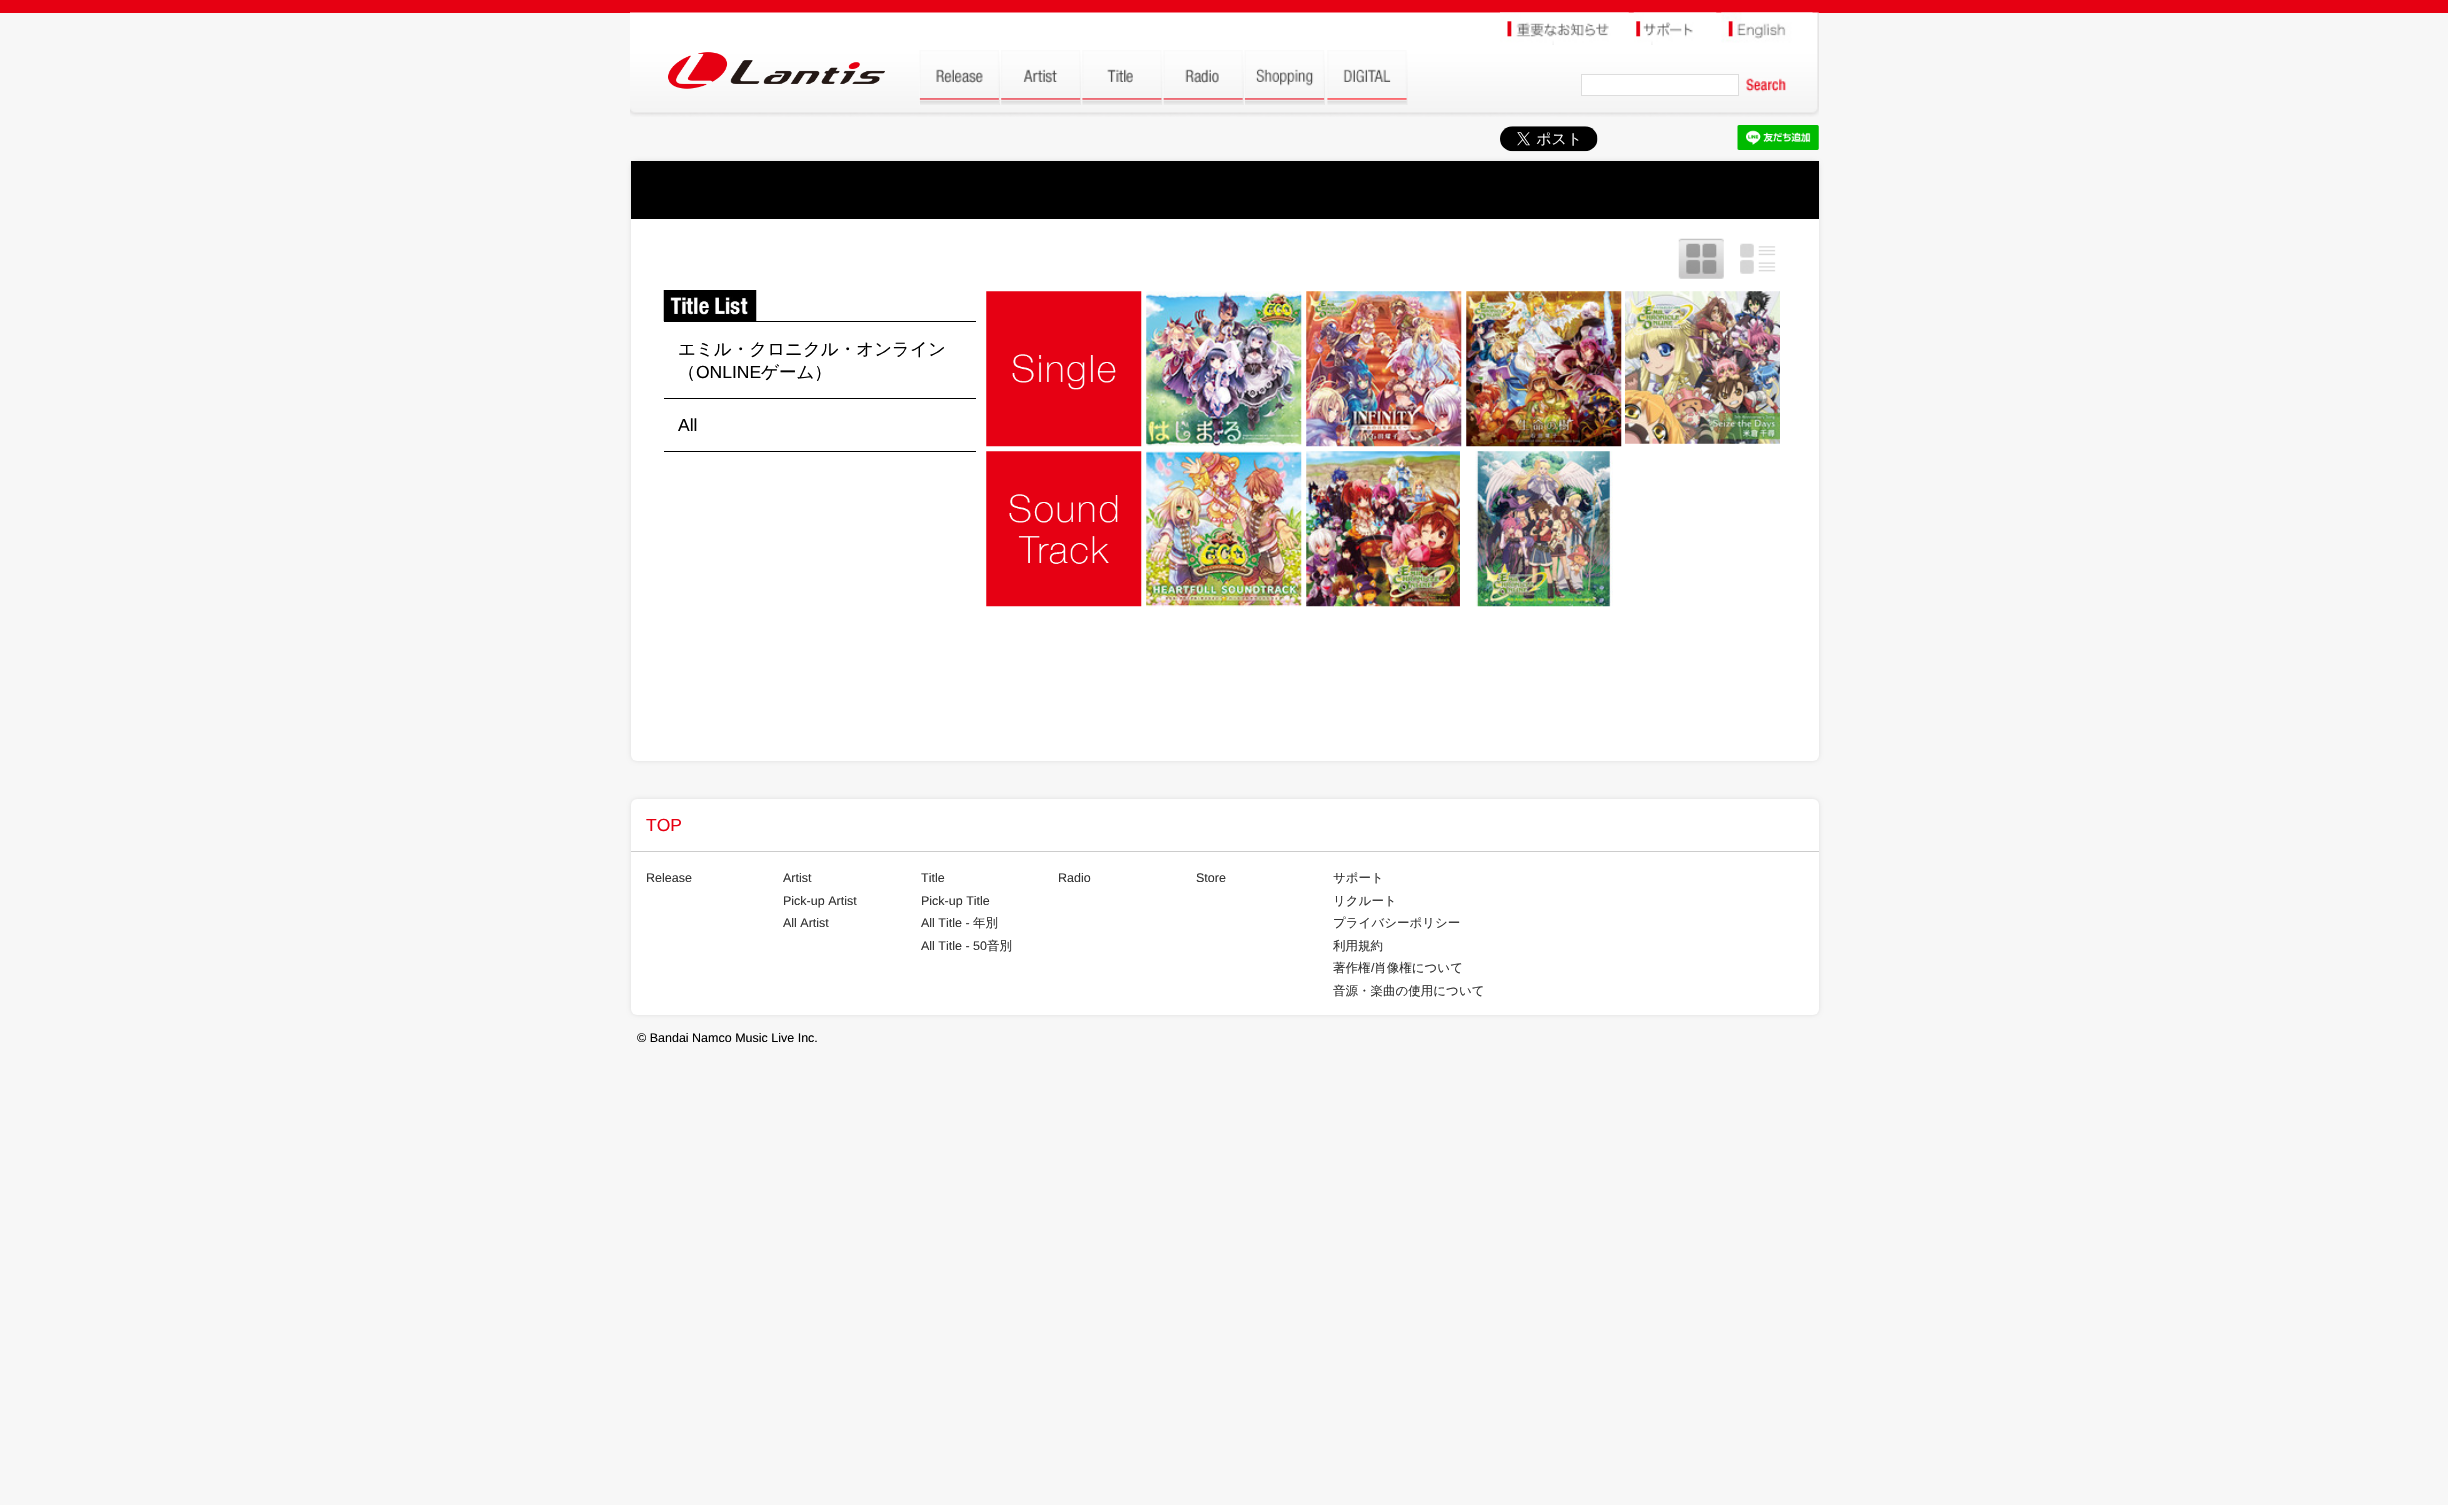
void draw(SkCanvas* c) {
SkPaint p;
p.setAntiAlias(true);
auto F=[&](const char* family, int weight, float size, bool italic = false){SkFontStyle style(weight, SkFontStyle::kNormal_Width,italic ? SkFontStyle::kItalic_Slant : SkFontStyle::kUpright_Slant);SkFont result(fontMgr->matchFamilyStyle(family, style), size);result.setSubpixel(true);return result;};
auto T=[&](const char* s, float x, float y, const SkFont& font){c->drawString(s, x, y, font, p);};
auto R=[&](float x, float y, float w, float h){c->drawRect(SkRect::MakeXYWH(x, y, w, h), p);};
auto Q=[&](float x, float y, float w, float h, float radius){c->drawRoundRect(SkRect::MakeXYWH(x, y, w, h), radius, radius, p);};
auto I=[&](const char* path, float x, float y, float w, float h){auto image = SkImages::DeferredFromEncodedData(SkData::MakeFromFileName(path));c->drawImageRect(image, SkRect::MakeXYWH(x, y, w, h), SkSamplingOptions());};
c->clear(0xfff7f7f7);
p.setColor(0xffe60012);
R(0,0,2448,13);
I("1.png",630,12,1189,105);
I("2.png",1500,12,129,33);
I("3.png",1633,12,84,33);
I("4.png",1721,12,92,31);
I("5.png",668,52,217,37);
I("6.png",919,50,81,55);
I("7.png",1001,50,80,55);
I("8.png",1082,50,81,55);
I("9.png",1162,50,82,55);
I("10.png",1244,50,81,55);
I("11.png",1327,50,81,55);
p.setColor(0xffffffff);
c->drawRect(SkRect::MakeXYWH(1581.5,74.5,157,21),p);
p.setStroke(true);
p.setStrokeWidth(1);
p.setColor(0xffdddddd);
c->drawRect(SkRect::MakeXYWH(1581.5,74.5,157,21),p);
I("12.png",1746,78,40,14);
I("13.png",1500,126,98,26);
I("14.png",1737,125,82,25);
p.setStroke(false);
p.setMaskFilter(SkMaskFilter::MakeBlur(kNormal_SkBlurStyle, 2));
c->drawRoundRect(SkRect::MakeXYWH(631,161,1188,600),6,6,p);
p.setMaskFilter(nullptr);
p.setColor(0xffffffff);
Q(631,161,1188,600,6);
p.setColor(0xff000000);
R(631,161,1188,58);
R(664,321,312,1);
I("15.png",663,290,94,32);
R(664,398,312,1);
auto f1 = F("WenQuanYi Zen Hei",500,17.5);
T("エミル・クロニクル・オンライン",678,355,f1);
T("（",678,378,f1);
auto f2 = F("Liberation Sans",400,17.5);
T("ONLINE",696,378,f2);
T("ゲーム）",761,378,f1);
R(664,451,312,1);
T("All",678,431,f2);
I("16.png",1678,238,46,41);
I("17.png",1740,243,36,31);
I("18.png",986,291,156,156);
I("19.png",1146,291,156,156);
I("20.png",1306,291,156,156);
I("21.png",1466,291,156,156);
I("22.png",1625,291,155,153);
I("23.png",986,451,156,156);
I("24.png",1146,451,156,156);
I("25.png",1306,451,154,156);
I("26.png",1475,451,138,156);
p.setColor(0xffdddddd);
p.setMaskFilter(SkMaskFilter::MakeBlur(kNormal_SkBlurStyle, 2));
c->drawRoundRect(SkRect::MakeXYWH(631,799,1188,216),6,6,p);
p.setMaskFilter(nullptr);
p.setColor(0xffffffff);
Q(631,799,1188,216,6);
p.setColor(0xffcccccc);
R(631,851,1188,1);
p.setColor(0xffe60012);
T("TOP",646,831,f2);
auto f3 = F("Liberation Sans",400,12.5);
p.setColor(0xff333333);
T("Release",646,882,f3);
T("Artist",783,882,f3);
T("Pick-up Artist",783,905,f3);
T("All Artist",783,927,f3);
T("Title",921,882,f3);
T("Pick-up Title",921,905,f3);
T("All Title -",921,927,f3);
auto f4 = F("WenQuanYi Zen Hei",500,12.5);
T("年別",973,927,f4);
T("All Title - 50",921,950,f3);
T("音別",987,950,f4);
T("Radio",1058,882,f3);
T("Store",1196,882,f3);
T("サポート",1333,882,f4);
T("リクルート",1333,905,f4);
T("プライバシーポリシー",1333,927,f4);
T("利用規約",1333,950,f4);
T("著作権 肖像権について",1333,972,f4);
T("/",1371,972,f3);
T("音源・楽曲の使用について",1333,995,f4);
p.setColor(0xff000000);
T("© Bandai Namco Music Live Inc.",637,1042,f3);
}
